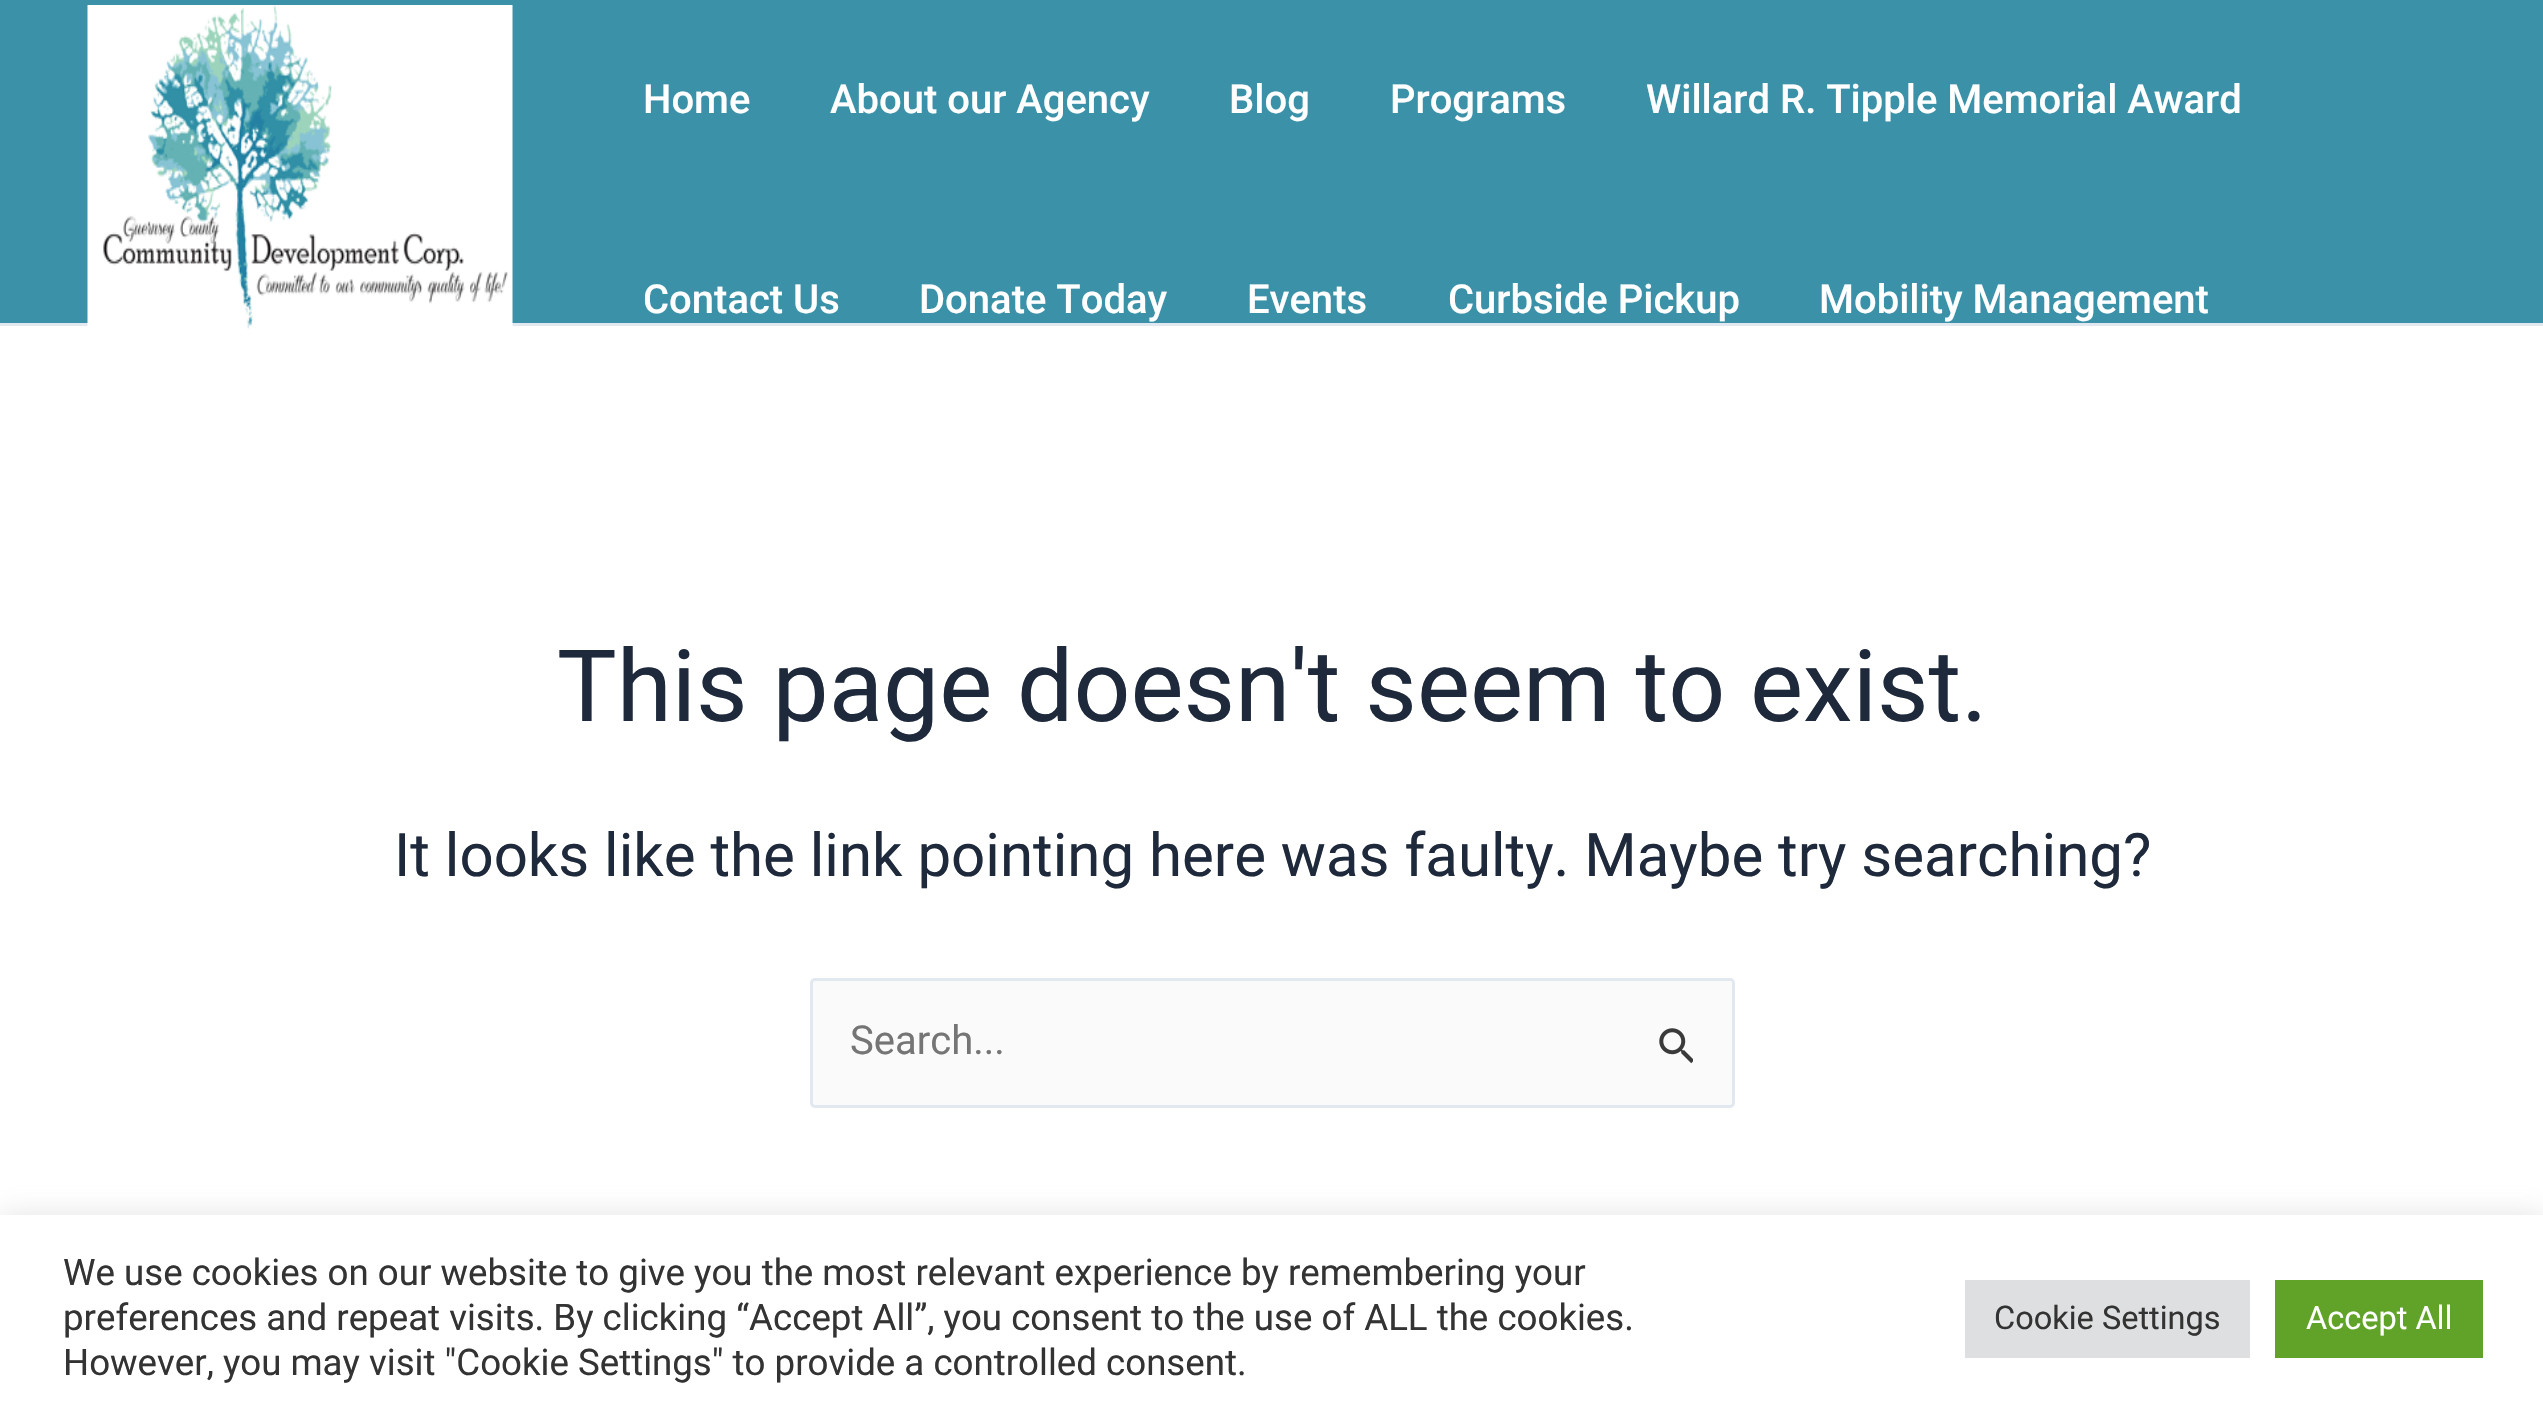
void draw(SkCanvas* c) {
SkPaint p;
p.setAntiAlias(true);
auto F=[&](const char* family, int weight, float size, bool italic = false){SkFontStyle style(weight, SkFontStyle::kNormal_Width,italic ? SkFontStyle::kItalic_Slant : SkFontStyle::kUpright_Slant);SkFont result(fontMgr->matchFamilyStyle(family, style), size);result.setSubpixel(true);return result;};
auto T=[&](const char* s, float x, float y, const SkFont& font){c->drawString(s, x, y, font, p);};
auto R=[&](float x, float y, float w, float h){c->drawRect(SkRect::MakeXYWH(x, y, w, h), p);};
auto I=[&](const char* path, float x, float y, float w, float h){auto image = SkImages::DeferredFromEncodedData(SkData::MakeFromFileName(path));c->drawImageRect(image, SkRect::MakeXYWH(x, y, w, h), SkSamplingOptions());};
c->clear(0xffffffff);
p.setColor(0xff3b92a8);
R(0,0,2543,323);
p.setColor(0xffe2e8f0);
R(0,323,2543,3);
I("1.png",87,5,426,324);
auto f1 = F("Roboto",500,40);
p.setColor(0xffffffff);
T("Home",643,113,f1);
T("About our Agency",830,113,f1);
T("Blog",1229,113,f1);
T("Programs",1390,113,f1);
T("Willard R. Tipple Memorial Award",1646,113,f1);
T("Contact Us",643,313,f1);
T("Donate Today",919,313,f1);
T("Events",1247,313,f1);
T("Curbside Pickup",1448,313,f1);
T("Mobility Management",1819,313,f1);
auto f2 = F("Roboto",400,100);
p.setColor(0xff1e293b);
T("This page doesn't seem to exist.",557,721,f2);
auto f3 = F("Roboto",400,60);
T("It looks like the link pointing here was faulty. Maybe try searching?",394,876,f3);
p.setColor(0xfffafafa);
c->drawRoundRect(SkRect::MakeXYWH(811.5,979.5,922,127),3.5,3.5,p);
p.setStroke(true);
p.setStrokeWidth(3);
p.setColor(0xffe2e8f0);
c->drawRoundRect(SkRect::MakeXYWH(811.5,979.5,922,127),3.5,3.5,p);
auto f4 = F("Roboto",400,40);
p.setStroke(false);
p.setColor(0xff757575);
T("Search...",850,1054,f4);
I("2.png",1659,1028,34,36);
p.setColor(0x4dacabab);
p.setMaskFilter(SkMaskFilter::MakeBlur(kNormal_SkBlurStyle, 12.5));
c->drawRect(SkRect::MakeXYWH(0,1213,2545,205),p);
p.setMaskFilter(nullptr);
p.setColor(0xffffffff);
R(0,1215,2543,203);
auto f5 = F("Roboto",400,36.65);
p.setColor(0xff333333);
T("We use cookies on our website to give you the most relevant experience by remembering your",63,1285,f5);
T("preferences and repeat visits. By clicking “Accept All”, you consent to the use of ALL the cookies.",63,1330,f5);
T("However, you may visit \"Cookie Settings\" to provide a controlled consent.",63,1375,f5);
p.setColor(0xffdedfe0);
R(1965,1280,285,78);
auto f6 = F("Roboto",400,32.5);
p.setColor(0xff333333);
T("Cookie Settings",1994,1329,f6);
p.setColor(0xff61a229);
R(2275,1280,208,78);
p.setColor(0xffffffff);
T("Accept All",2306,1329,f6);
}
